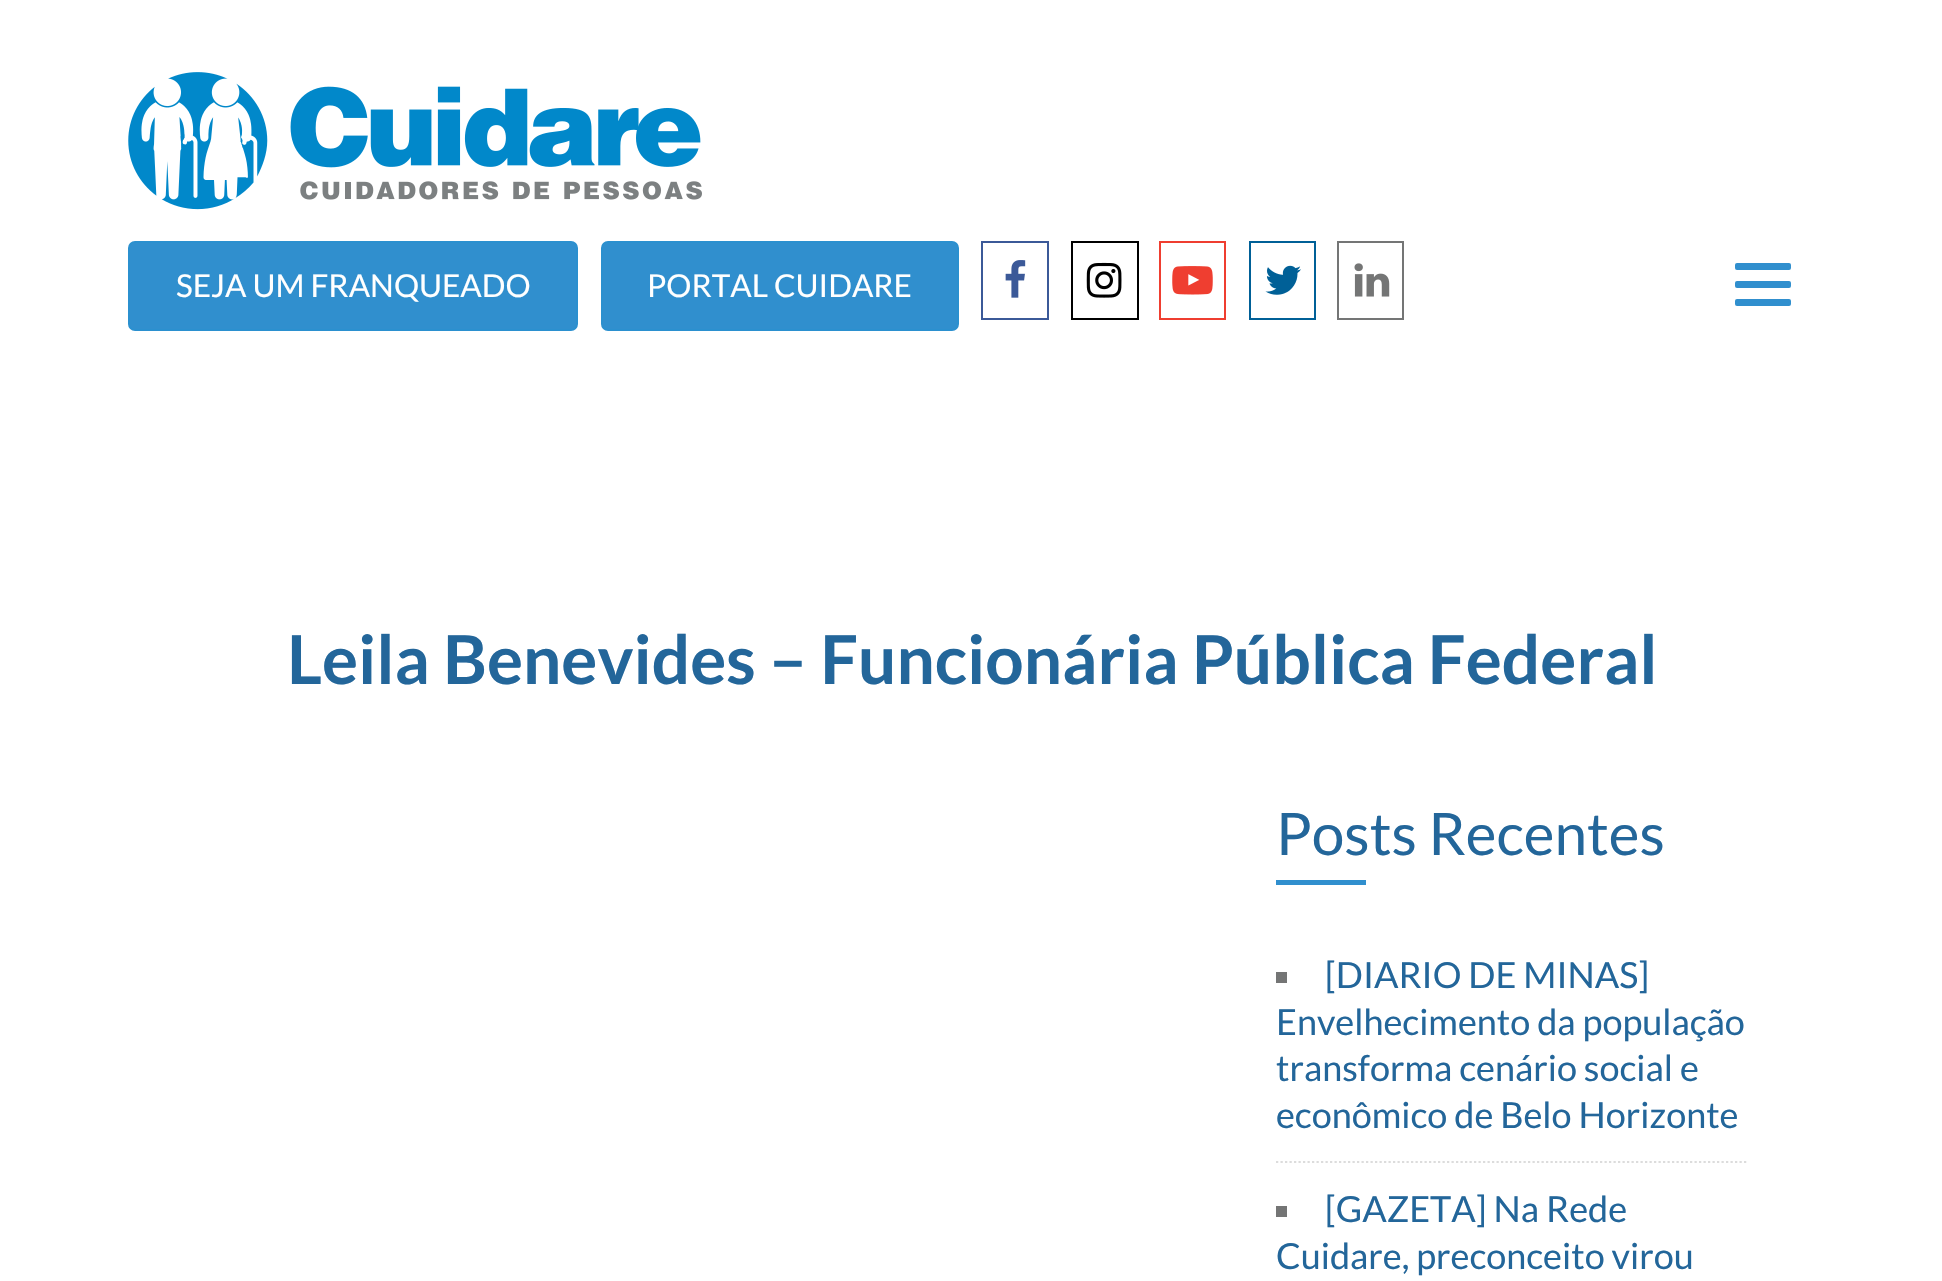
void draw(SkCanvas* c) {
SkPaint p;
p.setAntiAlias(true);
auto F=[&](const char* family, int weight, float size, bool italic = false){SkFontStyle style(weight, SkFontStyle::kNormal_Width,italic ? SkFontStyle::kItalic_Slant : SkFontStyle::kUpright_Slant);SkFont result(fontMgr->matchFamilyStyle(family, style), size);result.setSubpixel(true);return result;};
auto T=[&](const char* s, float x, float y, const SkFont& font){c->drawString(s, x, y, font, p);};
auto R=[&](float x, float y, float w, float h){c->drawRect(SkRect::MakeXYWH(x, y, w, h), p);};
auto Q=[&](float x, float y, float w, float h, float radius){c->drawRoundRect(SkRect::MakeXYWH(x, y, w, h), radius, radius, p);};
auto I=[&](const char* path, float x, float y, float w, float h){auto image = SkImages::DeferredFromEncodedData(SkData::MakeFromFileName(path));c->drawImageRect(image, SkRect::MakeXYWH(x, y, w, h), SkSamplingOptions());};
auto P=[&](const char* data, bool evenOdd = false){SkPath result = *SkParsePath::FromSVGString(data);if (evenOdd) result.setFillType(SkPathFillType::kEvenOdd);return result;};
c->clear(0xffffffff);
I("1.png",128,72,574,138);
p.setColor(0xff308fce);
c->drawRoundRect(SkRect::MakeXYWH(129,242,448,88),6,6,p);
p.setStroke(true);
p.setStrokeWidth(2);
p.setColor(0xff2b90cf);
c->drawRoundRect(SkRect::MakeXYWH(129,242,448,88),6,6,p);
auto f1 = F("Lato",400,31.5);
p.setStroke(false);
p.setColor(0xffffffff);
T("SEJA UM FRANQUEADO",176,297,f1);
p.setColor(0xff308fce);
c->drawRoundRect(SkRect::MakeXYWH(602,242,356,88),6,6,p);
p.setStroke(true);
p.setColor(0xff2b90cf);
c->drawRoundRect(SkRect::MakeXYWH(602,242,356,88),6,6,p);
p.setStroke(false);
p.setColor(0xffffffff);
T("PORTAL CUIDARE",647,297,f1);
p.setStroke(true);
p.setColor(0xff3b5998);
c->drawRect(SkRect::MakeXYWH(982,242,66,77),p);
I("2.png",1005,260,21,38);
p.setColor(0xff000000);
c->drawRect(SkRect::MakeXYWH(1072,242,66,77),p);
I("3.png",1086,262,36,36);
p.setColor(0xffef3e30);
c->drawRect(SkRect::MakeXYWH(1160,242,65,77),p);
I("4.png",1172,266,41,29);
p.setColor(0xff006097);
c->drawRect(SkRect::MakeXYWH(1250,242,65,77),p);
I("5.png",1265,265,36,30);
p.setColor(0xff747575);
c->drawRect(SkRect::MakeXYWH(1338,242,65,77),p);
I("6.png",1354,263,36,34);
p.setStroke(false);
p.setColor(0xff308fce);
Q(1735,263,56,7,2);
Q(1735,281,56,7,2);
Q(1735,299,56,7,2);
auto f2 = F("Lato",700,67.5);
p.setColor(0xff23669a);
T("Leila Benevides – Funcionária Pública Federal",287,684,f2);
auto f3 = F("Lato",400,58.5);
T("Posts Recentes",1276,855,f3);
p.setColor(0xff308fce);
R(1276,880,90,5);
p.setStroke(true);
p.setStrokeWidth(2.2);
p.setColor(0xffdcdcdc);
p.setPathEffect(SkDashPathEffect::Make({{2.25f,2.25f}}, 0));
c->drawPath(P("M1276 1162h472"),p);
p.setPathEffect(nullptr);
p.setStroke(false);
p.setColor(0xff747575);
R(1276,972,11,11);
auto f4 = F("Lato",400,36);
p.setColor(0xff23669a);
T("[DIARIO DE MINAS]",1325,988,f4);
T("Envelhecimento da população",1276,1035,f4);
T("transforma cenário social e",1276,1081,f4);
T("econômico de Belo Horizonte",1276,1128,f4);
p.setColor(0xff747575);
R(1276,1206,11,11);
p.setColor(0xff23669a);
T("[GAZETA] Na Rede",1325,1222,f4);
T("Cuidare, preconceito virou",1276,1269,f4);
}
